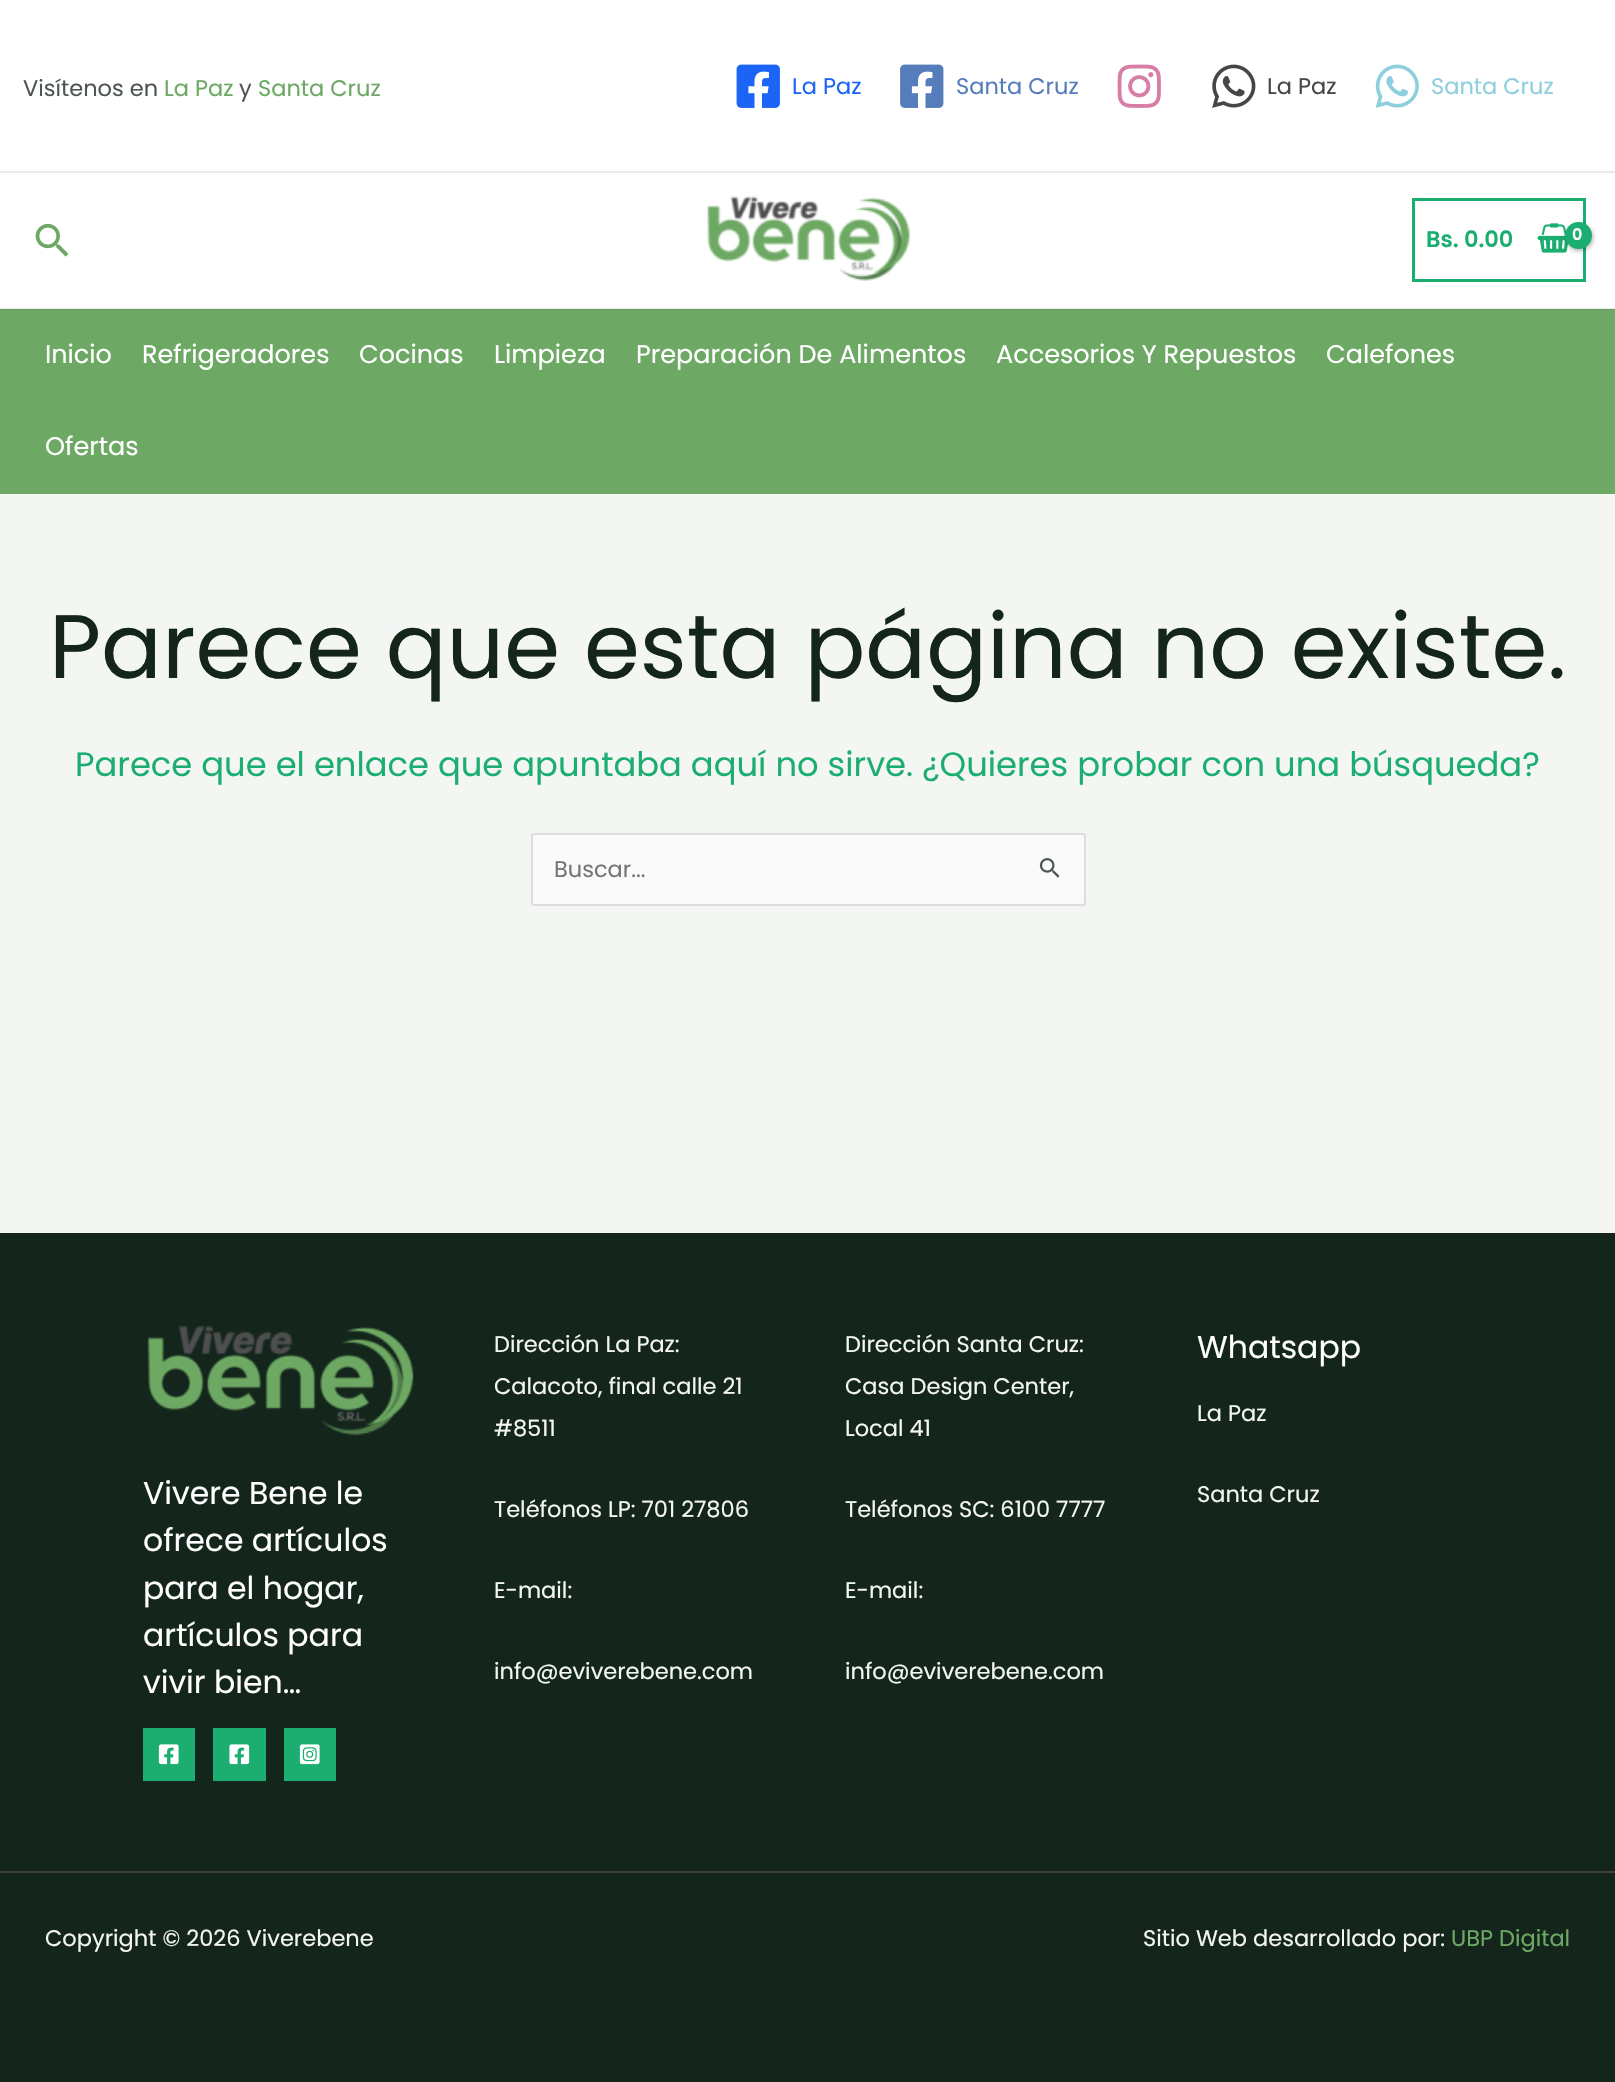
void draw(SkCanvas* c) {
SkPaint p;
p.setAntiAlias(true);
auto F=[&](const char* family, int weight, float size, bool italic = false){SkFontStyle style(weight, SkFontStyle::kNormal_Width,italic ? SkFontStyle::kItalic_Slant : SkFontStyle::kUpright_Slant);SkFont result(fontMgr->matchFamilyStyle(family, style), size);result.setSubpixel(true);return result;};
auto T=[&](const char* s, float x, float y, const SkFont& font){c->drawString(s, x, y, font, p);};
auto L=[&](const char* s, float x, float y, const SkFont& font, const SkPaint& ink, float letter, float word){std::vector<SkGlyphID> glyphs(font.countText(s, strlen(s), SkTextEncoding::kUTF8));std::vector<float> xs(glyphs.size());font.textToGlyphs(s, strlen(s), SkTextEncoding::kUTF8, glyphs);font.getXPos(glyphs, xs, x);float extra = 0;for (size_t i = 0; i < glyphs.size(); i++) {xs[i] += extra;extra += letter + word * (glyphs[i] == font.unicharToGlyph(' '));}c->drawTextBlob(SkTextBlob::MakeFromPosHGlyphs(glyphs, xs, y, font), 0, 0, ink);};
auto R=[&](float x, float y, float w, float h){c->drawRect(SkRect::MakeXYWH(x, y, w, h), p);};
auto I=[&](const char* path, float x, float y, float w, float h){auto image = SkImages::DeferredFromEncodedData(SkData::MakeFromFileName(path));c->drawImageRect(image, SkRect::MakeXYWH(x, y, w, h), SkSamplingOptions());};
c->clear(0xfff4f6f4);
p.setColor(0xffffffff);
R(0,0,1615,171);
p.setColor(0xffeaeaea);
R(0,171,1615,2);
auto f1 = F("Poppins",400,22.5);
p.setColor(0xff4e5652);
T("Visítenos en",23,96,f1);
p.setColor(0xff6da964);
T("La Paz",164,96,f1);
p.setColor(0xff4e5652);
T("y",239,96,f1);
p.setColor(0xff6da964);
T("Santa Cruz",258,96,f1);
I("1.png",736,64,44,44);
p.setColor(0xff1b64f6);
T("La Paz",792,94,f1);
I("2.png",900,64,44,44);
p.setColor(0xff557dbc);
T("Santa Cruz",956,94,f1);
I("3.png",1117,64,44,44);
I("4.png",1212,64,44,44);
p.setColor(0xff464646);
T("La Paz",1267,94,f1);
I("5.png",1375,64,44,44);
p.setColor(0xff8ecfde);
T("Santa Cruz",1431,94,f1);
p.setColor(0xffffffff);
R(0,173,1615,135);
p.setColor(0xffededed);
R(0,308,1615,1);
I("6.png",35,223,34,34);
I("7.png",706,196,205,85);
p.setStroke(true);
p.setStrokeWidth(3);
p.setColor(0xff1bae70);
c->drawRect(SkRect::MakeXYWH(1413.5,199.5,171,81),p);
auto f2 = F("Poppins",600,22.5);
p.setStroke(false);
T("Bs. 0.00",1426,247,f2);
I("8.png",1537,223,31,30);
p.setColor(0x4d000000);
p.setMaskFilter(SkMaskFilter::MakeBlur(kNormal_SkBlurStyle, 2));
c->drawRoundRect(SkRect::MakeXYWH(1566,224,27,27),13.5,13.5,p);
p.setMaskFilter(nullptr);
p.setColor(0xff1bae70);
c->drawCircle(1578.5,235.5,13.5,p);
auto f3 = F("Poppins",600,16);
p.setColor(0xffffffff);
L("0",1572,240,f3,p,-1,0);
p.setColor(0xff6da964);
R(0,310,1615,184);
p.setColor(0xff659d5d);
R(0,309,1615,1);
auto f4 = F("Poppins",400,25.5);
p.setColor(0xffffffff);
T("Inicio",45,363,f4);
T("Refrigeradores",142,363,f4);
T("Cocinas",359,363,f4);
T("Limpieza",494,363,f4);
T("Preparación De Alimentos",636,363,f4);
T("Accesorios Y Repuestos",996,363,f4);
T("Calefones",1326,363,f4);
T("Ofertas",45,455,f4);
auto f5 = F("Poppins",400,90);
p.setColor(0xff14261c);
T("Parece que esta página no existe.",49,678,f5);
auto f6 = F("Poppins",400,33.75);
p.setColor(0xff1bae70);
T("Parece que el enlace que apuntaba aquí no sirve. ¿Quieres probar con una búsqueda?",75,776,f6);
p.setColor(0xfffafafa);
c->drawRoundRect(SkRect::MakeXYWH(532,834,553,71),2,2,p);
p.setStroke(true);
p.setStrokeWidth(2);
p.setColor(0xffdddddd);
c->drawRoundRect(SkRect::MakeXYWH(532,834,553,71),2,2,p);
p.setStroke(false);
p.setColor(0xff757575);
T("Buscar...",554,877,f1);
I("9.png",1039,858,21,20);
p.setColor(0xff14261c);
R(0,1233,1615,638);
p.setColor(0xfff4f6f4);
T("Dirección La Paz:",494,1352,f1);
T("Calacoto, final calle 21",494,1394,f1);
T("#8511",494,1436,f1);
T("Teléfonos LP: 701 27806",494,1517,f1);
T("E-mail:",494,1598,f1);
T("info@eviverebene.com",494,1679,f1);
T("Dirección Santa Cruz:",845,1352,f1);
T("Casa Design Center,",845,1394,f1);
T("Local 41",845,1436,f1);
T("Teléfonos SC: 6100 7777",845,1517,f1);
T("E-mail:",845,1598,f1);
T("info@eviverebene.com",845,1679,f1);
auto f7 = F("Poppins",400,31.5);
p.setColor(0xffffffff);
T("Whatsapp",1197,1358,f7);
p.setColor(0xfff4f6f4);
T("La Paz",1197,1421,f1);
T("Santa Cruz",1197,1502,f1);
I("10.png",147,1325,267,111);
p.setColor(0xffffffff);
T("Vivere Bene le",143,1504,f7);
T("ofrece artículos",143,1551,f7);
T("para el hogar,",143,1599,f7);
T("artículos para",143,1646,f7);
T("vivir bien…",143,1693,f7);
p.setColor(0xff1bae70);
R(143,1728,52,53);
I("11.png",158,1744,21,21);
R(213,1728,53,53);
I("12.png",229,1744,21,21);
R(284,1728,52,53);
I("13.png",299,1744,21,21);
p.setColor(0xff14261c);
R(0,1873,1615,209);
p.setColor(0xff3f3f3f);
R(0,1871,1615,2);
p.setColor(0xfff4f6f4);
T("Copyright © 2026 Viverebene",45,1946,f1);
T("Sitio Web desarrollado por:",1143,1946,f1);
p.setColor(0xff6da964);
T("UBP Digital",1451,1946,f1);
}
